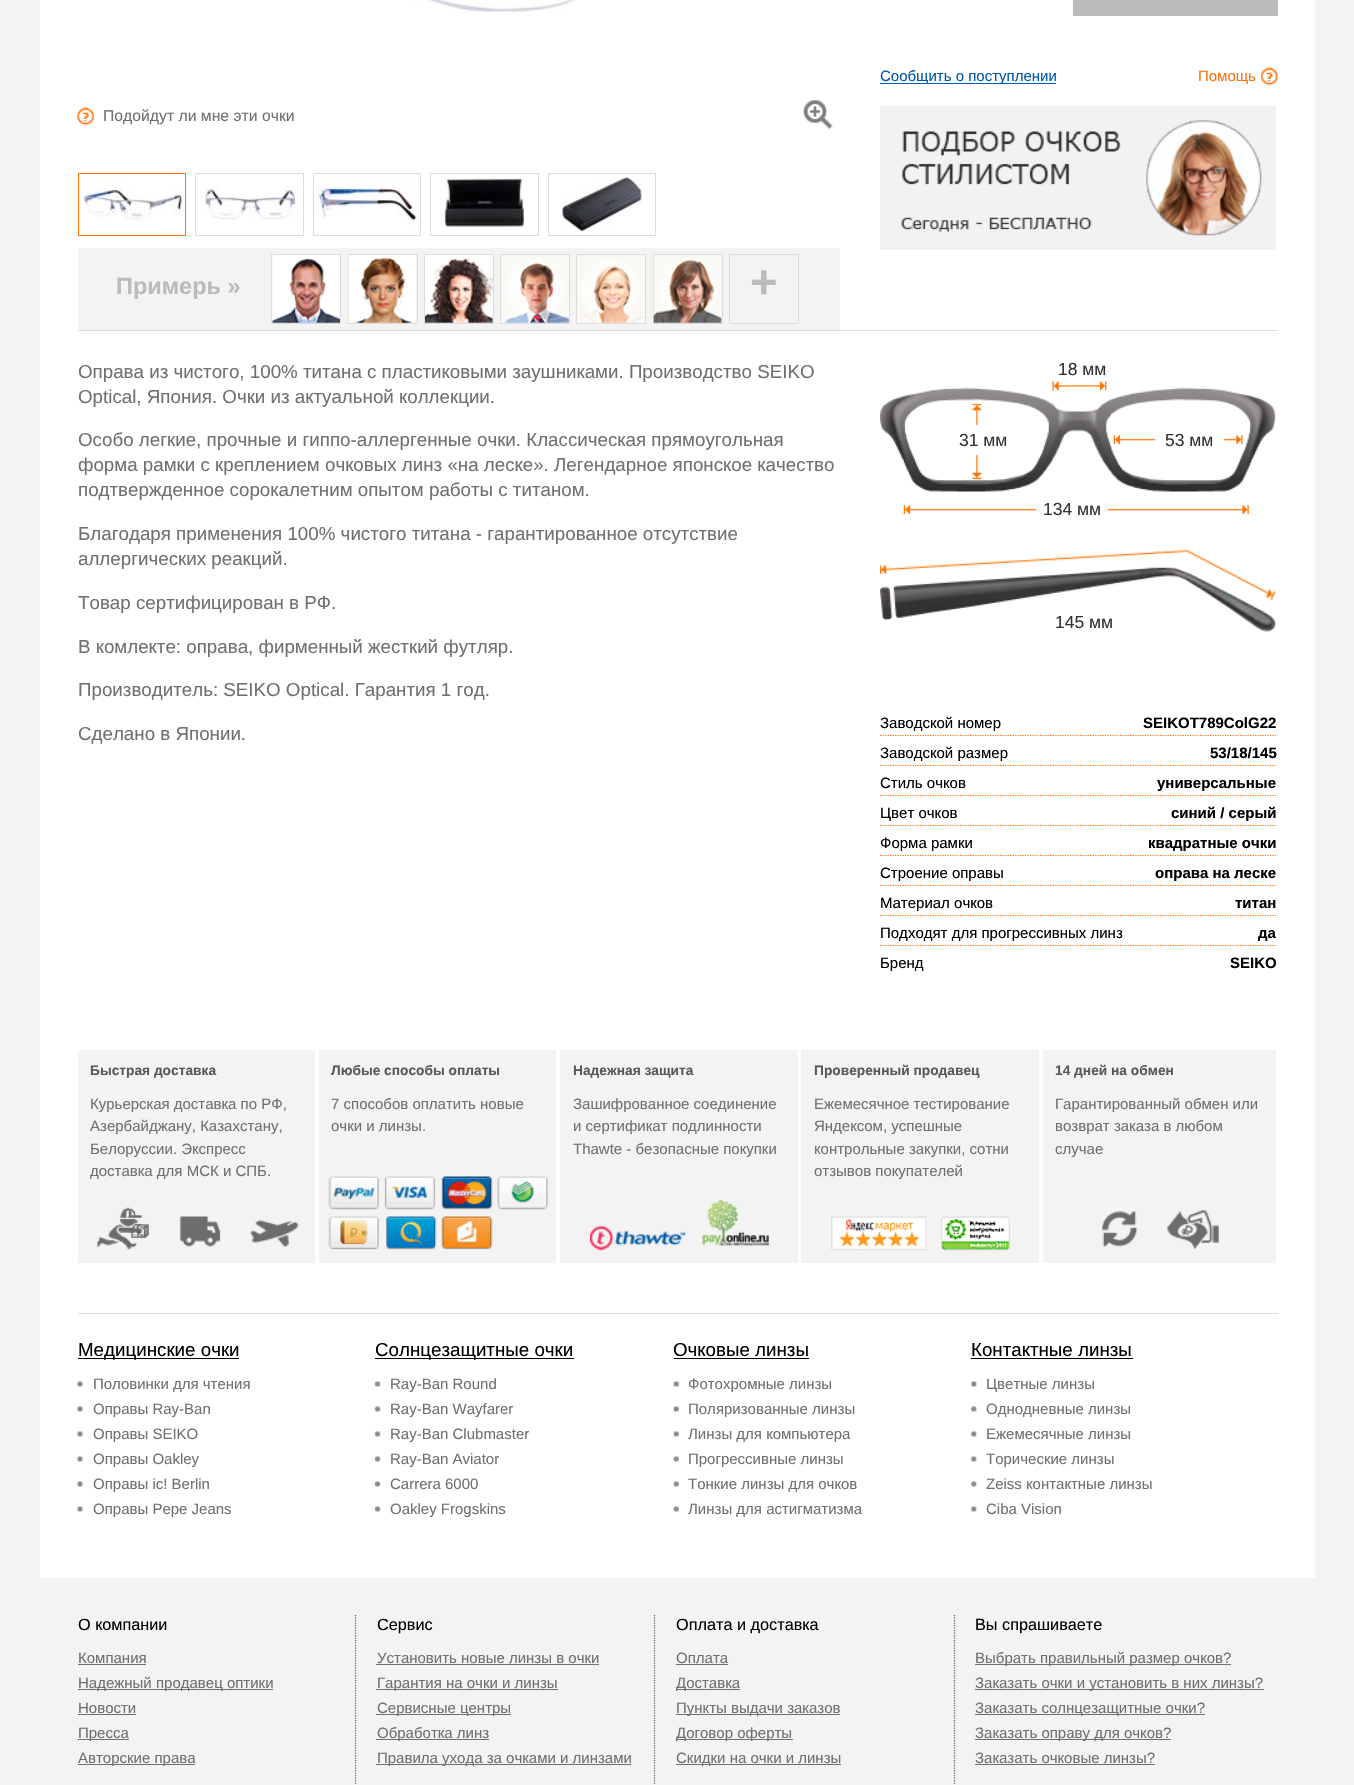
void draw(SkCanvas* c) {
SkPaint p;
p.setAntiAlias(true);
auto F=[&](const char* family, int weight, float size, bool italic = false){SkFontStyle style(weight, SkFontStyle::kNormal_Width,italic ? SkFontStyle::kItalic_Slant : SkFontStyle::kUpright_Slant);SkFont result(fontMgr->matchFamilyStyle(family, style), size);result.setSubpixel(true);return result;};
auto T=[&](const char* s, float x, float y, const SkFont& font){c->drawString(s, x, y, font, p);};
auto R=[&](float x, float y, float w, float h){c->drawRect(SkRect::MakeXYWH(x, y, w, h), p);};
auto I=[&](const char* path, float x, float y, float w, float h){auto image = SkImages::DeferredFromEncodedData(SkData::MakeFromFileName(path));c->drawImageRect(image, SkRect::MakeXYWH(x, y, w, h), SkSamplingOptions());};
auto P=[&](const char* data, bool evenOdd = false){SkPath result = *SkParsePath::FromSVGString(data);if (evenOdd) result.setFillType(SkPathFillType::kEvenOdd);return result;};
c->clear(0xfff3f3f3);
p.setColor(0xffffffff);
R(40,0,1275,1578);
p.setColor(0xffbbbbbb);
R(1073,0,205,16);
p.setColor(0xff0057aa);
R(880,83,176,1);
auto f1 = F("Liberation Sans",400,15);
T("Сообщить о поступлении",880,81,f1);
I("1.png",1261,67,17,19);
p.setColor(0xffff720e);
T("Помощь",1198,81,f1);
I("2.png",880,105,396,145);
I("3.png",412,0,165,12);
I("4.png",77,107,17,19);
auto f2 = F("Liberation Sans",400,15.75);
p.setColor(0xff707070);
T("Подойдут ли мне эти очки",103,121,f2);
I("5.png",803,100,30,29);
p.setStroke(true);
p.setStrokeWidth(1);
p.setColor(0xffff720e);
c->drawRect(SkRect::MakeXYWH(78.5,173.5,107,62),p);
I("6.png",82,176,101,45);
p.setColor(0xffdcdcdc);
c->drawRect(SkRect::MakeXYWH(195.5,173.5,108,62),p);
I("7.png",200,186,100,34);
c->drawRect(SkRect::MakeXYWH(313.5,173.5,107,62),p);
I("8.png",317,177,101,48);
c->drawRect(SkRect::MakeXYWH(430.5,173.5,108,62),p);
I("9.png",444,178,81,49);
c->drawRect(SkRect::MakeXYWH(548.5,173.5,107,62),p);
I("10.png",562,177,81,56);
p.setStroke(false);
p.setColor(0xfff3f3f3);
R(78,248,762,82);
auto f3 = F("Liberation Sans",700,23.5);
p.setColor(0xffbbbbbb);
T("Примерь »",116,294,f3);
p.setStroke(true);
p.setColor(0xffdcdcdc);
c->drawRect(SkRect::MakeXYWH(271.5,254.5,69,69),p);
c->drawRect(SkRect::MakeXYWH(348.5,254.5,69,69),p);
c->drawRect(SkRect::MakeXYWH(424.5,254.5,69,69),p);
c->drawRect(SkRect::MakeXYWH(500.5,254.5,69,69),p);
c->drawRect(SkRect::MakeXYWH(576.5,254.5,69,69),p);
c->drawRect(SkRect::MakeXYWH(653.5,254.5,69,69),p);
I("11.png",272,255,68,68);
I("12.png",348,255,68,68);
I("13.png",425,255,68,68);
I("14.png",501,255,68,68);
I("15.png",577,255,68,68);
I("16.png",653,255,69,68);
c->drawRect(SkRect::MakeXYWH(729.5,254.5,69,69),p);
auto f4 = F("Liberation Sans",700,47);
p.setStroke(false);
p.setColor(0xffbbbbbb);
T("+",750,298,f4);
p.setColor(0xffdcdcdc);
R(78,330,1200,1);
auto f5 = F("Liberation Sans",400,18.75);
p.setColor(0xff707070);
T("Оправа из чистого, 100% титана с пластиковыми заушниками. Производство SEIKO",78,378,f5);
T("Optical, Япония. Очки из актуальной коллекции.",78,403,f5);
T("Особо легкие, прочные и гиппо-аллергенные очки. Классическая прямоугольная",78,446,f5);
T("форма рамки с креплением очковых линз «на леске». Легендарное японское качество",78,471,f5);
T("подтвержденное сорокалетним опытом работы с титаном.",78,496,f5);
T("Благодаря применения 100% чистого титана - гарантированное отсутствие",78,540,f5);
T("аллергических реакций.",78,565,f5);
T("Товар сертифицирован в РФ.",78,609,f5);
T("В комлекте: оправа, фирменный жесткий футляр.",78,653,f5);
T("Производитель: SEIKO Optical. Гарантия 1 год.",78,696,f5);
T("Сделано в Японии.",78,740,f5);
I("17.png",880,381,397,251);
auto f6 = F("Liberation Sans",400,17.5);
p.setColor(0xff333333);
T("18 мм",1058,375,f6);
p.setColor(0xffffffff);
R(976,425,2,30);
p.setColor(0xff333333);
T("31 мм",959,446,f6);
p.setColor(0xffffffff);
R(1155,438,69,3);
p.setColor(0xff333333);
T("53 мм",1165,446,f6);
p.setColor(0xffffffff);
R(1036,508,72,3);
p.setColor(0xff333333);
T("134 мм",1043,515,f6);
T("145 мм",1055,628,f6);
p.setStroke(true);
p.setStrokeWidth(1.2);
p.setColor(0xffff720e);
p.setPathEffect(SkDashPathEffect::Make({{1.25f,1.25f}}, 0));
c->drawPath(P("M880 735.5h396"),p);
p.setPathEffect(nullptr);
p.setStroke(false);
p.setColor(0xff000000);
T("Заводской номер",880,728,f1);
auto f7 = F("Liberation Sans",700,15);
T("SEIKOT789ColG22",1143,728,f7);
p.setStroke(true);
p.setColor(0xffff720e);
p.setPathEffect(SkDashPathEffect::Make({{1.25f,1.25f}}, 0));
c->drawPath(P("M880 765.5h396"),p);
p.setPathEffect(nullptr);
p.setStroke(false);
p.setColor(0xff000000);
T("Заводской размер",880,758,f1);
T("53/18/145",1210,758,f7);
p.setStroke(true);
p.setColor(0xffff720e);
p.setPathEffect(SkDashPathEffect::Make({{1.25f,1.25f}}, 0));
c->drawPath(P("M880 795.5h396"),p);
p.setPathEffect(nullptr);
p.setStroke(false);
p.setColor(0xff000000);
T("Стиль очков",880,788,f1);
T("универсальные",1157,788,f7);
p.setStroke(true);
p.setColor(0xffff720e);
p.setPathEffect(SkDashPathEffect::Make({{1.25f,1.25f}}, 0));
c->drawPath(P("M880 825.5h396"),p);
p.setPathEffect(nullptr);
p.setStroke(false);
p.setColor(0xff000000);
T("Цвет очков",880,818,f1);
T("синий / серый",1171,818,f7);
p.setStroke(true);
p.setColor(0xffff720e);
p.setPathEffect(SkDashPathEffect::Make({{1.25f,1.25f}}, 0));
c->drawPath(P("M880 855.5h396"),p);
p.setPathEffect(nullptr);
p.setStroke(false);
p.setColor(0xff000000);
T("Форма рамки",880,848,f1);
T("квадратные очки",1148,848,f7);
p.setStroke(true);
p.setColor(0xffff720e);
p.setPathEffect(SkDashPathEffect::Make({{1.25f,1.25f}}, 0));
c->drawPath(P("M880 885.5h396"),p);
p.setPathEffect(nullptr);
p.setStroke(false);
p.setColor(0xff000000);
T("Строение оправы",880,878,f1);
T("оправа на леске",1155,878,f7);
p.setStroke(true);
p.setColor(0xffff720e);
p.setPathEffect(SkDashPathEffect::Make({{1.25f,1.25f}}, 0));
c->drawPath(P("M880 915.5h396"),p);
p.setPathEffect(nullptr);
p.setStroke(false);
p.setColor(0xff000000);
T("Материал очков",880,908,f1);
T("титан",1235,908,f7);
p.setStroke(true);
p.setColor(0xffff720e);
p.setPathEffect(SkDashPathEffect::Make({{1.25f,1.25f}}, 0));
c->drawPath(P("M880 945.5h396"),p);
p.setPathEffect(nullptr);
p.setStroke(false);
p.setColor(0xff000000);
T("Подходят для прогрессивных линз",880,938,f1);
T("да",1258,938,f7);
T("Бренд",880,968,f1);
T("SEIKO",1230,968,f7);
p.setColor(0xfff3f3f3);
R(78,1050,237,213);
I("18.png",96,1207,203,43);
auto f8 = F("Liberation Sans",700,13.75);
p.setColor(0xff5c5757);
T("Быстрая доставка",90,1075,f8);
p.setColor(0xff707070);
T("Курьерская доставка по РФ,",90,1109,f1);
T("Азербайджану, Казахстану,",90,1131,f1);
T("Белоруссии. Экспресс",90,1154,f1);
T("доставка для МСК и СПБ.",90,1176,f1);
p.setColor(0xfff3f3f3);
R(319,1050,237,213);
I("19.png",328,1176,220,74);
p.setColor(0xff5c5757);
T("Любые способы оплаты",331,1075,f8);
p.setColor(0xff707070);
T("7 способов оплатить новые",331,1109,f1);
T("очки и линзы.",331,1131,f1);
p.setColor(0xfff3f3f3);
R(560,1050,238,213);
I("20.png",590,1200,179,51);
p.setColor(0xff5c5757);
T("Надежная защита",573,1075,f8);
p.setColor(0xff707070);
T("Зашифрованное соединение",573,1109,f1);
T("и сертификат подлинности",573,1131,f1);
T("Thawte - безопасные покупки",573,1154,f1);
p.setColor(0xfff3f3f3);
R(801,1050,238,213);
I("21.png",831,1216,179,35);
p.setColor(0xff5c5757);
T("Проверенный продавец",814,1075,f8);
p.setColor(0xff707070);
T("Ежемесячное тестирование",814,1109,f1);
T("Яндексом, успешные",814,1131,f1);
T("контрольные закупки, сотни",814,1154,f1);
T("отзывов покупателей",814,1176,f1);
p.setColor(0xfff3f3f3);
R(1043,1050,233,213);
I("22.png",1101,1210,118,40);
p.setColor(0xff5c5757);
T("14 дней на обмен",1055,1075,f8);
p.setColor(0xff707070);
T("Гарантированный обмен или",1055,1109,f1);
T("возврат заказа в любом",1055,1131,f1);
T("случае",1055,1154,f1);
p.setColor(0xffdcdcdc);
R(78,1313,1200,1);
p.setColor(0xff000000);
R(78,1358,161,1);
T("Медицинские очки",78,1356,f5);
I("23.png",76,1381,8,6);
p.setColor(0xff707070);
T("Половинки для чтения",93,1389,f1);
I("23.png",76,1406,8,6);
T("Оправы Ray-Ban",93,1414,f1);
I("23.png",76,1431,8,6);
T("Оправы SEIKO",93,1439,f1);
I("23.png",76,1456,8,6);
T("Оправы Oakley",93,1464,f1);
I("23.png",76,1481,8,6);
T("Оправы ic! Berlin",93,1489,f1);
I("23.png",76,1506,8,6);
T("Оправы Pepe Jeans",93,1514,f1);
p.setColor(0xff000000);
R(375,1358,199,1);
T("Солнцезащитные очки",375,1356,f5);
I("24.png",374,1381,7,6);
p.setColor(0xff707070);
T("Ray-Ban Round",390,1389,f1);
I("24.png",374,1406,7,6);
T("Ray-Ban Wayfarer",390,1414,f1);
I("24.png",374,1431,7,6);
T("Ray-Ban Clubmaster",390,1439,f1);
I("24.png",374,1456,7,6);
T("Ray-Ban Aviator",390,1464,f1);
I("24.png",374,1481,7,6);
T("Carrera 6000",390,1489,f1);
I("24.png",374,1506,7,6);
T("Oakley Frogskins",390,1514,f1);
p.setColor(0xff000000);
T("Очковые линзы",673,1356,f5);
R(674,1358,135,1);
I("25.png",673,1381,7,6);
p.setColor(0xff707070);
T("Фотохромные линзы",688,1389,f1);
I("25.png",673,1406,7,6);
T("Поляризованные линзы",688,1414,f1);
I("25.png",673,1431,7,6);
T("Линзы для компьютера",688,1439,f1);
I("25.png",673,1456,7,6);
T("Прогрессивные линзы",688,1464,f1);
I("25.png",673,1481,7,6);
T("Тонкие линзы для очков",688,1489,f1);
I("25.png",673,1506,7,6);
T("Линзы для астигматизма",688,1514,f1);
p.setColor(0xff000000);
T("Контактные линзы",971,1356,f5);
R(971,1358,162,1);
I("26.png",970,1381,7,6);
p.setColor(0xff707070);
T("Цветные линзы",986,1389,f1);
I("26.png",970,1406,7,6);
T("Однодневные линзы",986,1414,f1);
I("26.png",970,1431,7,6);
T("Ежемесячные линзы",986,1439,f1);
I("26.png",970,1456,7,6);
T("Торические линзы",986,1464,f1);
I("26.png",970,1481,7,6);
T("Zeiss контактные линзы",986,1489,f1);
I("26.png",970,1506,7,6);
T("Ciba Vision",986,1514,f1);
p.setStroke(true);
p.setColor(0xff626262);
p.setPathEffect(SkDashPathEffect::Make({{1.25f,1.25f}}, 0));
c->drawPath(P("M355.5 1615v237.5"),p);
p.setPathEffect(nullptr);
auto f9 = F("Liberation Sans",400,16.25);
p.setStroke(false);
p.setColor(0xff000000);
T("О компании",78,1630,f9);
p.setColor(0xff707070);
T("Компания",78,1663,f1);
R(78,1664,68,1);
R(78,1689,195,1);
T("Надежный продавец оптики",78,1688,f1);
T("Новости",78,1713,f1);
R(78,1714,58,1);
R(78,1739,51,1);
T("Пресса",78,1738,f1);
R(78,1764,117,1);
T("Авторские права",78,1763,f1);
p.setStroke(true);
p.setColor(0xff626262);
p.setPathEffect(SkDashPathEffect::Make({{1.25f,1.25f}}, 0));
c->drawPath(P("M654.5 1615v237.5"),p);
p.setPathEffect(nullptr);
p.setStroke(false);
p.setColor(0xff000000);
T("Сервис",377,1630,f9);
p.setColor(0xff707070);
T("Установить новые линзы в очки",377,1663,f1);
R(376,1664,223,1);
R(376,1689,182,1);
T("Гарантия на очки и линзы",377,1688,f1);
R(376,1714,135,1);
T("Сервисные центры",377,1713,f1);
R(376,1739,113,1);
T("Обработка линз",377,1738,f1);
R(376,1764,255,1);
T("Правила ухода за очками и линзами",377,1763,f1);
p.setStroke(true);
p.setColor(0xff626262);
p.setPathEffect(SkDashPathEffect::Make({{1.25f,1.25f}}, 0));
c->drawPath(P("M954.5 1615v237.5"),p);
p.setPathEffect(nullptr);
p.setStroke(false);
p.setColor(0xff000000);
T("Оплата и доставка",676,1630,f9);
p.setColor(0xff707070);
T("Оплата",676,1663,f1);
R(676,1664,52,1);
R(676,1689,64,1);
T("Доставка",676,1688,f1);
R(676,1714,164,1);
T("Пункты выдачи заказов",676,1713,f1);
R(676,1739,117,1);
T("Договор оферты",676,1738,f1);
R(676,1764,165,1);
T("Скидки на очки и линзы",676,1763,f1);
p.setColor(0xff000000);
T("Вы спрашиваете",975,1630,f9);
p.setColor(0xff707070);
R(975,1664,256,1);
T("Выбрать правильный размер очков?",975,1663,f1);
R(975,1689,289,1);
T("Заказать очки и установить в них линзы?",975,1688,f1);
R(975,1714,230,1);
T("Заказать солнцезащитные очки?",975,1713,f1);
R(975,1739,196,1);
T("Заказать оправу для очков?",975,1738,f1);
T("Заказать очковые линзы?",975,1763,f1);
R(975,1764,180,1);
}
